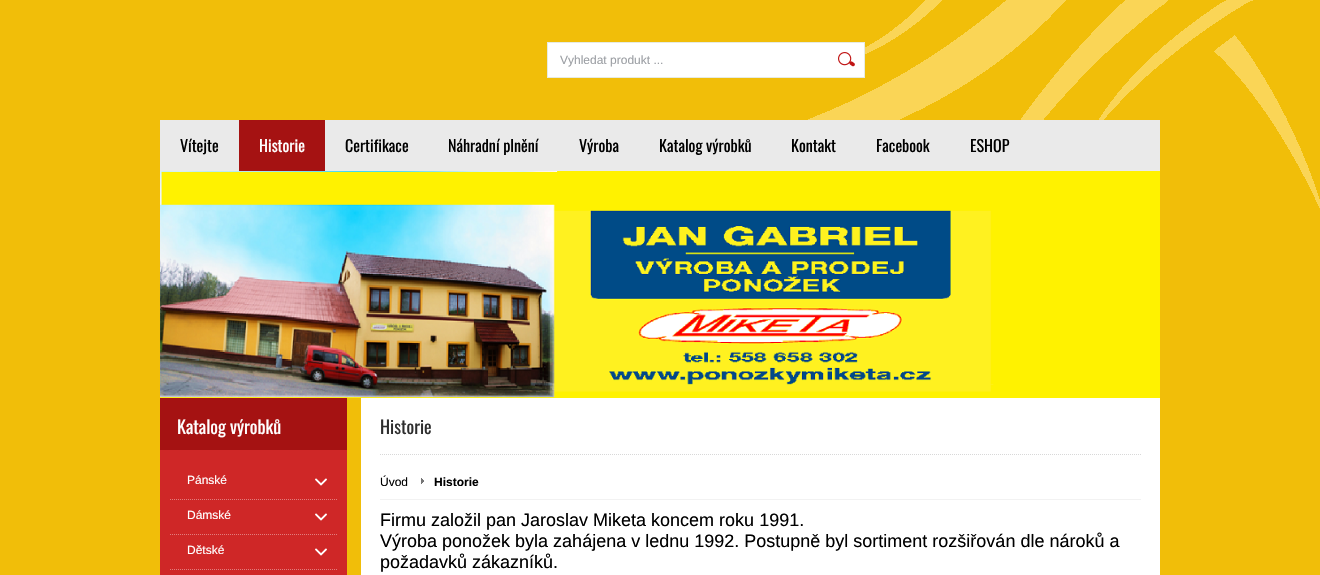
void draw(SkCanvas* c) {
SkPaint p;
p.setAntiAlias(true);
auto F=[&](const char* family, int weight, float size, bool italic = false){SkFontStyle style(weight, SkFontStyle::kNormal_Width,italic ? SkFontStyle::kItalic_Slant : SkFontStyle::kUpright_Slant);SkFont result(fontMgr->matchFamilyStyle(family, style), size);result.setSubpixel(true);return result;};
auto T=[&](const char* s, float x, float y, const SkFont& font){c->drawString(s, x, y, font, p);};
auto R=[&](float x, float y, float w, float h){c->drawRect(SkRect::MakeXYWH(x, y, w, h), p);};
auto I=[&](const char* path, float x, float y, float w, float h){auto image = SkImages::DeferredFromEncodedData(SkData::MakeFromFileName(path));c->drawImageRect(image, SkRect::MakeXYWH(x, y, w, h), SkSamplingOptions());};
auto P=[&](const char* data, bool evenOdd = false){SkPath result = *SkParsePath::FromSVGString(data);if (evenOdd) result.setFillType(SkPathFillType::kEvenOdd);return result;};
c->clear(0xffffffff);
I("1.png",0,0,1320,575);
p.setColor(0xffffffff);
c->drawRect(SkRect::MakeXYWH(547.5,42.5,317,35),p);
p.setStroke(true);
p.setStrokeWidth(1);
p.setColor(0xffe6ebe3);
c->drawRect(SkRect::MakeXYWH(547.5,42.5,317,35),p);
auto f1 = F("Liberation Sans",400,12);
p.setStroke(false);
p.setColor(0xff9c9fa4);
T("Vyhledat produkt ...",560,64,f1);
I("2.png",838,52,17,15);
p.setColor(0xffeaeaea);
R(160,120,1000,51);
auto f2 = F("Oswald",400,16);
p.setColor(0xff000000);
T("Vítejte",180,152,f2);
p.setColor(0xffa51212);
R(239,120,86,51);
p.setColor(0xffffffff);
T("Historie",259,152,f2);
p.setColor(0xff000000);
T("Certifikace",345,152,f2);
T("Náhradní plnění",448,152,f2);
T("Výroba",579,152,f2);
T("Katalog výrobků",659,152,f2);
T("Kontakt",791,152,f2);
T("Facebook",876,152,f2);
T("ESHOP",970,152,f2);
I("3.png",160,171,1000,227);
p.setColor(0xffcf2727);
R(160,450,187,125);
p.setColor(0xffa51212);
R(160,398,187,52);
auto f3 = F("Oswald",400,18);
p.setColor(0xffffffff);
T("Katalog výrobků",177,434,f3);
p.setStroke(true);
p.setColor(0xffe27d7d);
p.setPathEffect(SkDashPathEffect::Make({{1,1}}, 0));
c->drawPath(P("M170 499.5h167"),p);
p.setPathEffect(nullptr);
p.setStroke(false);
p.setColor(0xffffffff);
T("Pánské",187,484,f1);
I("4.png",315,478,12,8);
p.setStroke(true);
p.setColor(0xffe27d7d);
p.setPathEffect(SkDashPathEffect::Make({{1,1}}, 0));
c->drawPath(P("M170 534.5h167"),p);
p.setPathEffect(nullptr);
p.setStroke(false);
p.setColor(0xffffffff);
T("Dámské",187,519,f1);
I("4.png",315,513,12,8);
p.setStroke(true);
p.setColor(0xffe27d7d);
p.setPathEffect(SkDashPathEffect::Make({{1,1}}, 0));
c->drawPath(P("M170 569.5h167"),p);
p.setPathEffect(nullptr);
p.setStroke(false);
p.setColor(0xffffffff);
T("Dětské",187,554,f1);
I("4.png",315,548,12,8);
R(361,398,799,177);
p.setStroke(true);
p.setColor(0xffd8d8d8);
p.setPathEffect(SkDashPathEffect::Make({{1,1}}, 0));
c->drawPath(P("M380 454.5h761"),p);
p.setPathEffect(nullptr);
p.setStroke(false);
p.setColor(0xff2d2d2d);
T("Historie",380,434,f3);
p.setColor(0xfff2f2f2);
R(380,499,761,1);
p.setColor(0xff000000);
T("Úvod",380,486,f1);
I("5.png",421,478,3,6);
auto f4 = F("Liberation Sans",700,12);
T("Historie",434,486,f4);
auto f5 = F("Liberation Sans",400,18);
T("Firmu založil pan Jaroslav Miketa koncem roku 1991.",380,526,f5);
T("Výroba ponožek byla zahájena v lednu 1992. Postupně byl sortiment rozšiřován dle nároků a",380,547,f5);
T("požadavků zákazníků.",380,568,f5);
}
